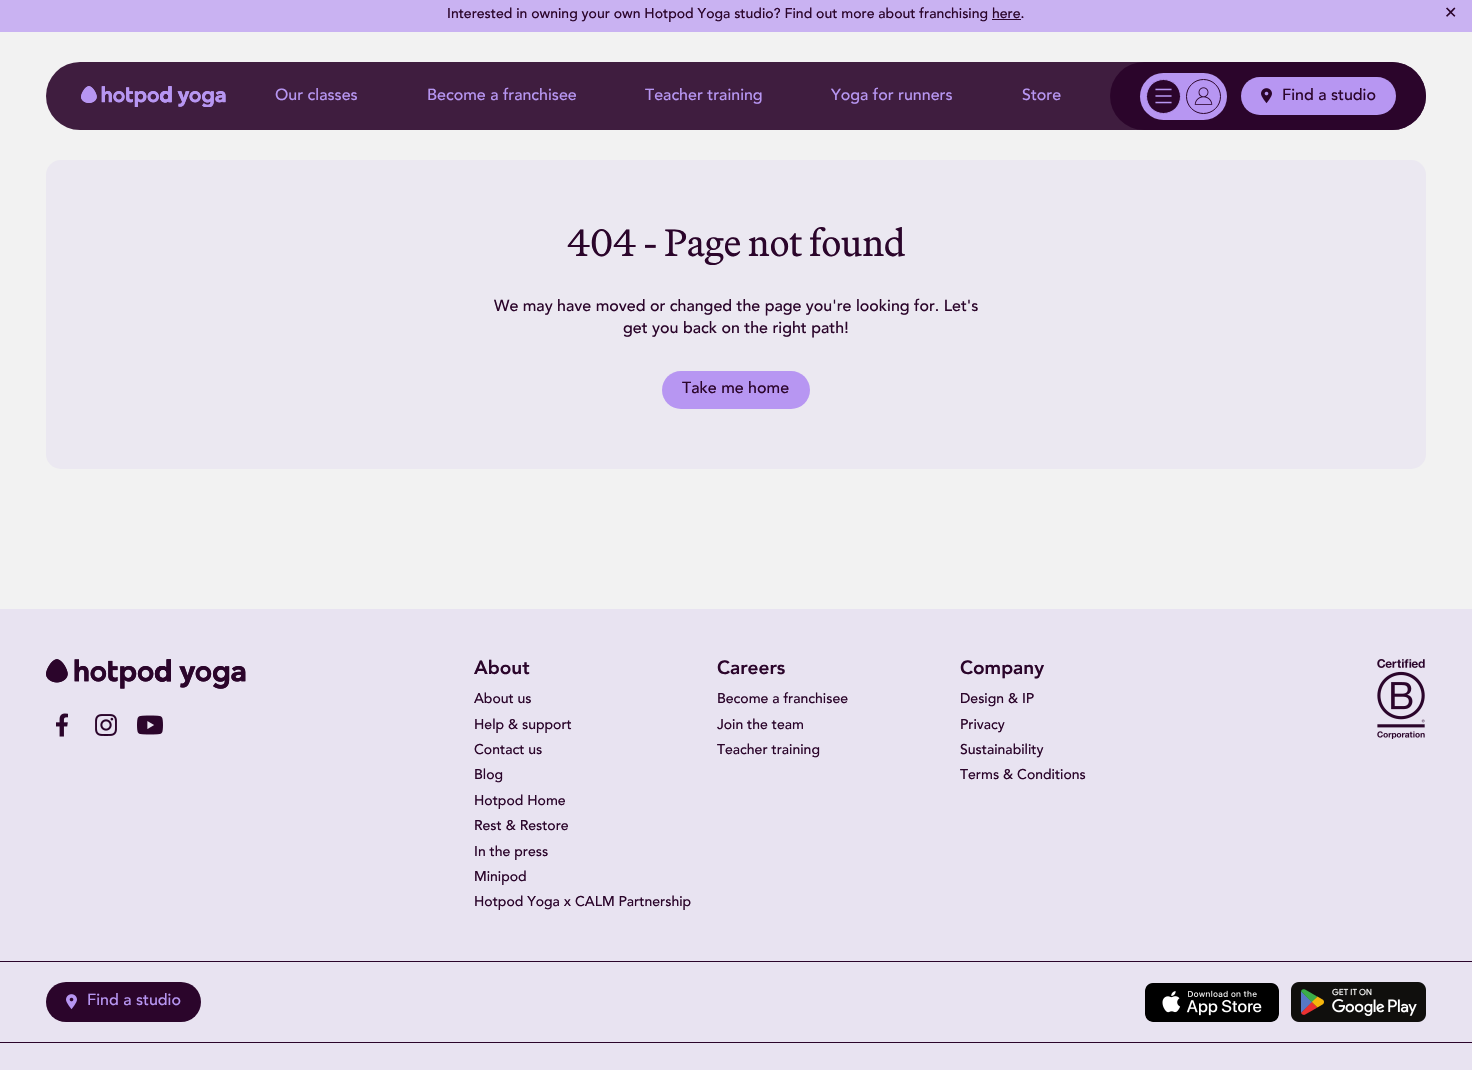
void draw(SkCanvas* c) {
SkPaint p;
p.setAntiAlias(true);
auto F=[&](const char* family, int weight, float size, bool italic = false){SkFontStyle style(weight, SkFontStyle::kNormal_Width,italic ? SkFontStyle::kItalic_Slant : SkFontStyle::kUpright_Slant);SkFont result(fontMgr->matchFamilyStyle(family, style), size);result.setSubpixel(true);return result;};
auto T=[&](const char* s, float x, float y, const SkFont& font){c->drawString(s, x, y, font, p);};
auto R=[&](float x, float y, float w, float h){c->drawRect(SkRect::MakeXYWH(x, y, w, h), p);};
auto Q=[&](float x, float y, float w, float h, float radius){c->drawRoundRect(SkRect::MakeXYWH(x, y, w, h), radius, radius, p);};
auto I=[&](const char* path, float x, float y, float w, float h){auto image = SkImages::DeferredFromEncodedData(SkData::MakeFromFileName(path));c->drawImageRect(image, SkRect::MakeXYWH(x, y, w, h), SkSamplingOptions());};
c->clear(0xfff2f2f2);
p.setColor(0xffc9b2f2);
R(0,0,1472,32);
auto f1 = F("Avenir",500,14);
p.setColor(0xff2b052b);
T("Interested in owning your own Hotpod Yoga studio? Find out more about franchising here.",447,18,f1);
R(992,19,29,1);
auto f2 = F("DejaVu Sans",400,16);
T("✕",1444,18,f2);
p.setColor(0xff3f1d3f);
Q(46,62,1380,68,34);
I("1.png",81,86,145,21);
auto f3 = F("Avenir",500,16);
p.setColor(0xffb796f2);
T("Our classes",275,100,f3);
T("Become a franchisee",427,100,f3);
T("Teacher training",645,100,f3);
T("Yoga for runners",831,100,f3);
T("Store",1022,100,f3);
p.setColor(0xff2b052b);
Q(1110,62,316,68,34);
p.setColor(0xffb796f2);
Q(1140,73,87,47,23.5);
p.setColor(0xff2b052b);
c->drawCircle(1163.5,96.5,17,p);
p.setStroke(true);
p.setStrokeWidth(1);
p.setColor(0xffb796f2);
c->drawCircle(1163.5,96.5,17,p);
I("2.png",1155,88,17,16);
p.setColor(0xff2b052b);
c->drawCircle(1203.5,96.5,17,p);
I("3.png",1194,87,19,18);
p.setStroke(false);
p.setColor(0xffb796f2);
Q(1241,77,155,38,19);
I("4.png",1261,88,11,16);
p.setColor(0xff2b052b);
T("Find a studio",1282,100,f3);
p.setColor(0xffebe8f1);
Q(46,160,1380,309,15);
auto f4 = F("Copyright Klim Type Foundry",400,38);
p.setColor(0xff2b052b);
T("404 - Page not found",567,256,f4);
T("We may have moved or changed the page you're looking for. Let's",494,311,f3);
T("get you back on the right path!",623,333,f3);
p.setColor(0xffb796f2);
Q(662,371,148,38,19);
p.setColor(0xff2b052b);
T("Take me home",682,393,f3);
p.setColor(0xffe8e3f1);
R(0,609,1472,461);
I("5.png",46,659,200,30);
I("6.png",56,713,12,24);
I("7.png",95,714,22,22);
I("8.png",137,715,26,20);
auto f5 = F("Avenir",900,19);
p.setColor(0xff2b052b);
T("About",474,674,f5);
T("About us",474,703,f1);
T("Help & support",474,729,f1);
T("Contact us",474,754,f1);
T("Blog",474,779,f1);
T("Hotpod Home",474,805,f1);
T("Rest & Restore",474,830,f1);
T("In the press",474,856,f1);
T("Minipod",474,881,f1);
T("Hotpod Yoga x CALM Partnership",474,906,f1);
T("Careers",717,674,f5);
T("Become a franchisee",717,703,f1);
T("Join the team",717,729,f1);
T("Teacher training",717,754,f1);
T("Company",960,674,f5);
T("Design & IP",960,703,f1);
T("Privacy",960,729,f1);
T("Sustainability",960,754,f1);
T("Terms & Conditions",960,779,f1);
I("9.png",1377,659,48,80);
R(0,961,1472,1);
Q(46,982,155,40,20);
I("10.png",66,994,11,16);
p.setColor(0xffb796f2);
T("Find a studio",87,1005,f3);
I("11.png",1145,983,134,39);
I("12.png",1291,982,135,40);
p.setColor(0xff2b052b);
R(0,1042,1472,1);
}
